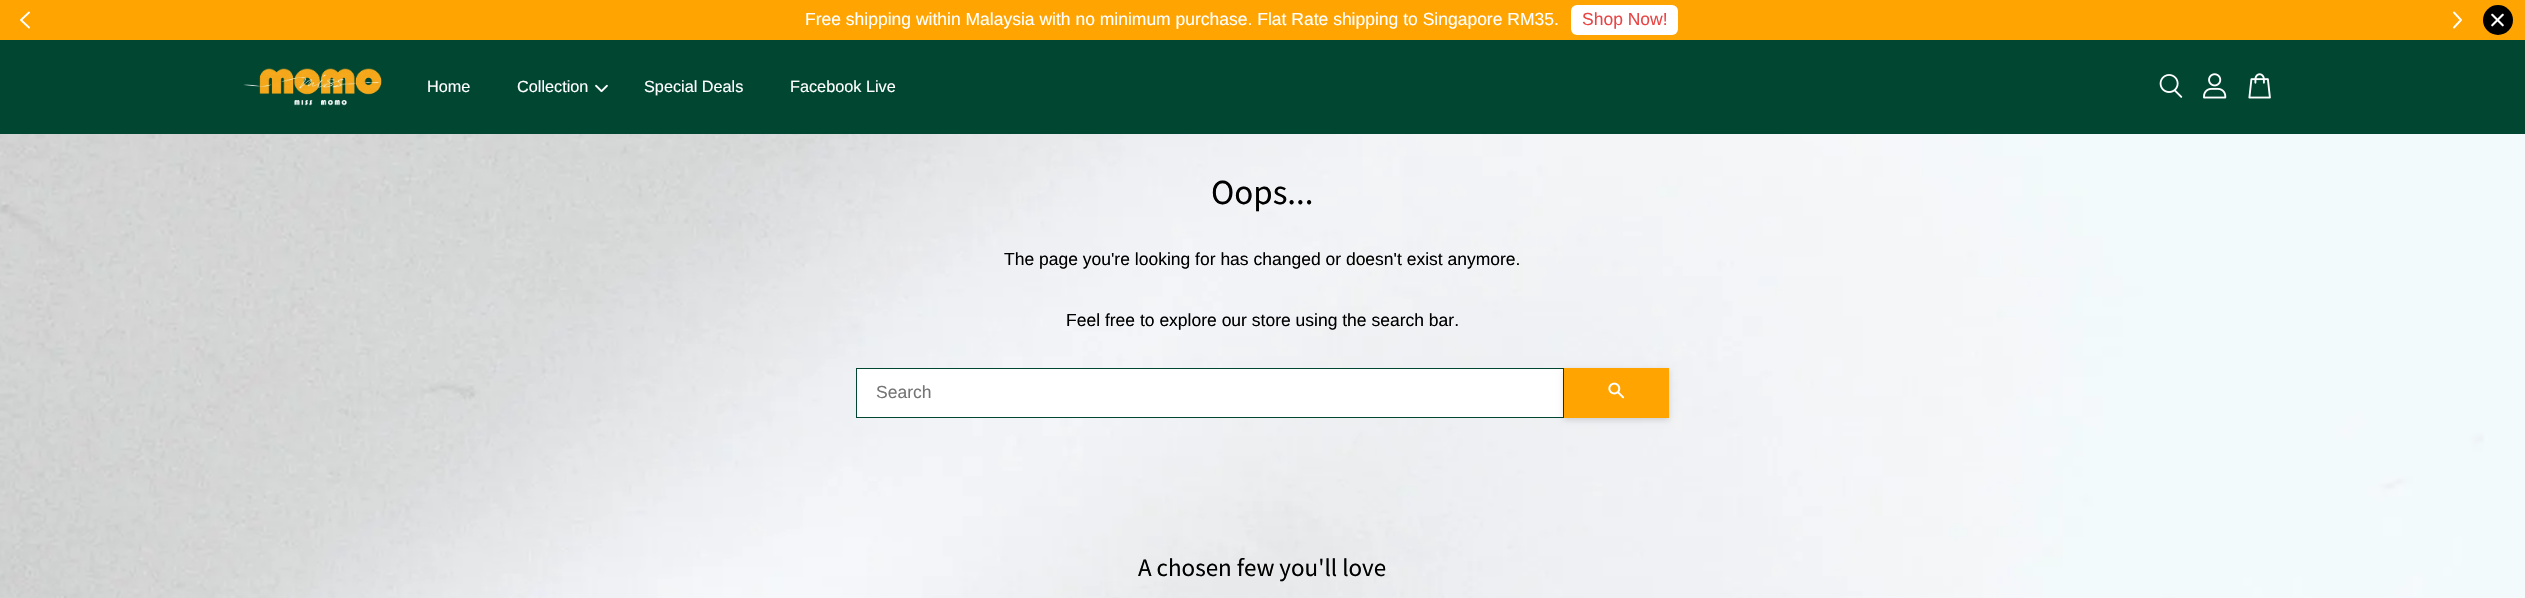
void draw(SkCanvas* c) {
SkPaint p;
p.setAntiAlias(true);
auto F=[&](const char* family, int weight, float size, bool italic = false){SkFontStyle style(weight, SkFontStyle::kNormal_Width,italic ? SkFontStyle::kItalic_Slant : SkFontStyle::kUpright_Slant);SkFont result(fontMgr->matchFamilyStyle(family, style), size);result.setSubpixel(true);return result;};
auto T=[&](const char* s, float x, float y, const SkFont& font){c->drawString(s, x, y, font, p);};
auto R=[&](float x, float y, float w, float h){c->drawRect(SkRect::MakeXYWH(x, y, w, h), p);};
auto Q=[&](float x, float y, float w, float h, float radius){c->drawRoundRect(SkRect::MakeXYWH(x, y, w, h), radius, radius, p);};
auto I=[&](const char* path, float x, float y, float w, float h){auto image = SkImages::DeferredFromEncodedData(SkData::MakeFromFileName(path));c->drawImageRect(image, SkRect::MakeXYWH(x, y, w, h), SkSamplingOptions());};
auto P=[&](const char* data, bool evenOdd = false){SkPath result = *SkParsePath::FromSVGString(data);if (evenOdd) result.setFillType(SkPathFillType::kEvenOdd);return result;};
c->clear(0xffffffff);
I("1.png",0,134,2525,464);
p.setColor(0xffffa400);
R(0,0,2525,40);
p.setStroke(true);
p.setStrokeWidth(1.9);
p.setStrokeCap(SkPaint::kRound_Cap);
p.setStrokeJoin(SkPaint::kRound_Join);
p.setColor(0xffffffff);
c->drawPath(P("M29 12.5l-8 7.5l8 7.5"),p);
auto f1 = F("Liberation Sans",400,17.5);
p.setStroke(false);
T("Free shipping within Malaysia with no minimum purchase. Flat Rate shipping to Singapore RM35.",805,25,f1);
Q(1571,5,107,30,6);
p.setColor(0xffe94545);
T("Shop Now!",1582,25,f1);
p.setStroke(true);
p.setColor(0xffffffff);
c->drawPath(P("M2454 12.5l7 7.5l-7 7.5"),p);
p.setStroke(false);
p.setColor(0xff000000);
c->drawCircle(2498,20,15,p);
p.setColor(0xffffffff);
c->drawPath(P("M2503.5 14c.5 .5 .5 1 0 1.5l-10.5 10.5c-.5 .5-1 .5-1.5 0c-.5-.5-.5-1 0-1.5l10.5-10.5c.5-.5 1-.5 1.5 0z"),p);
c->drawPath(P("M2491.5 14c.5-.5 1-.5 1.5 0l10.5 10.5c.5 .5 .5 1 0 1.5c-.5 .5-1 .5-1.5 0l-10.5-10.5c-.5-.5-.5-1 0-1.5z"),p);
p.setColor(0xff004631);
R(0,40,2525,94);
I("2.png",243,68,139,38);
auto f2 = F("Liberation Sans",400,16.25);
p.setColor(0xffffffff);
T("Home",427,92,f2);
T("Collection",517,92,f2);
I("3.png",595,84,13,9);
T("Special Deals",644,92,f2);
T("Facebook Live",790,92,f2);
I("4.png",2159,74,24,24);
I("5.png",2203,73,24,26);
I("6.png",2248,73,23,26);
auto f3 = F("Source Sans Pro",400,35);
p.setColor(0xff000000);
T("Oops...",1211,204,f3);
T("The page you're looking for has changed or doesn't exist anymore.",1004,265,f1);
T("Feel free to explore our store using the search bar.",1066,326,f1);
p.setColor(0xffffffff);
c->drawRect(SkRect::MakeXYWH(856.5,368.5,707,49),p);
p.setStroke(true);
p.setStrokeWidth(1);
p.setStrokeCap(SkPaint::kButt_Cap);
p.setStrokeJoin(SkPaint::kMiter_Join);
p.setColor(0xff004631);
c->drawRect(SkRect::MakeXYWH(856.5,368.5,707,49),p);
p.setStroke(false);
p.setColor(0xff757575);
T("Search",876,398,f1);
p.setColor(0x26000000);
p.setMaskFilter(SkMaskFilter::MakeBlur(kNormal_SkBlurStyle, 3));
c->drawRect(SkRect::MakeXYWH(1564,370,105,50),p);
p.setMaskFilter(nullptr);
p.setColor(0xffffa400);
R(1564,368,105,50);
I("7.png",1608,382,17,17);
auto f4 = F("Source Sans Pro",400,25);
p.setColor(0xff000000);
T("A chosen few you'll love",1138,576,f4);
}
